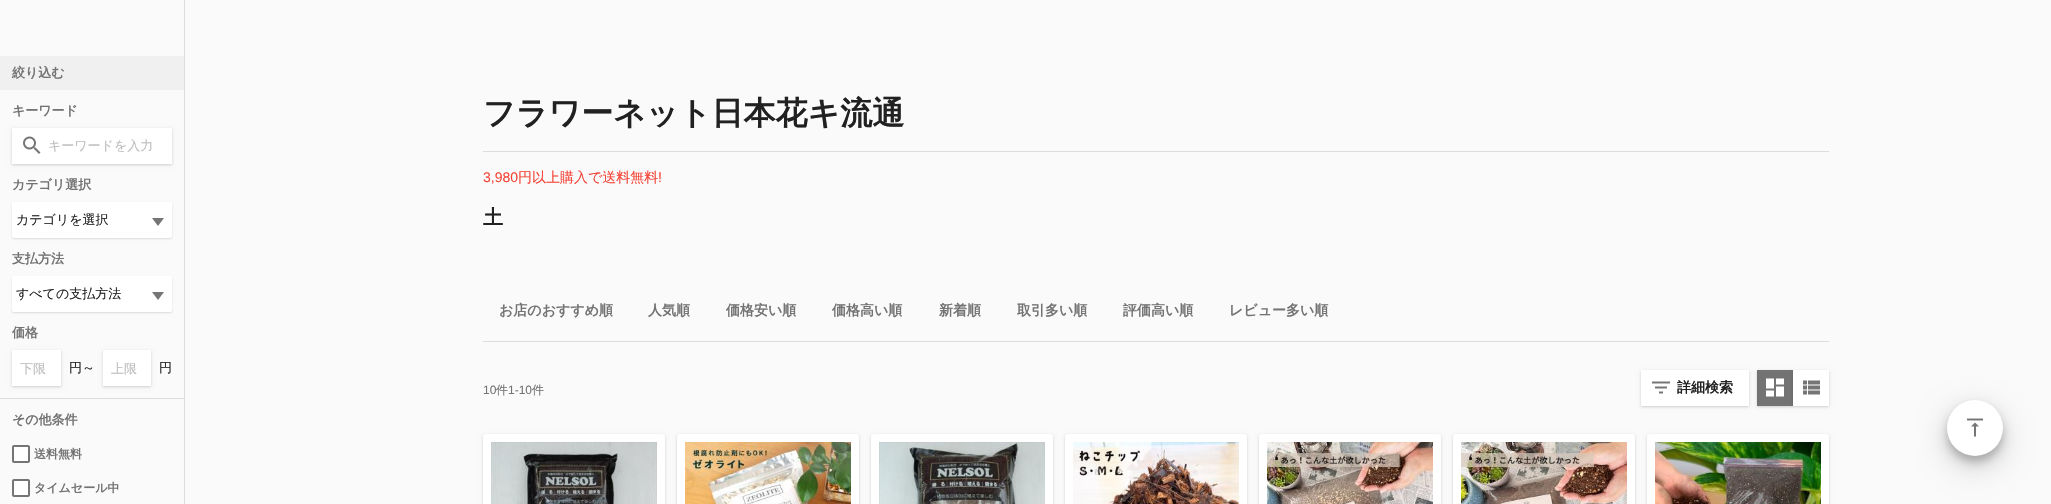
void draw(SkCanvas* c) {
SkPaint p;
p.setAntiAlias(true);
auto F=[&](const char* family, int weight, float size, bool italic = false){SkFontStyle style(weight, SkFontStyle::kNormal_Width,italic ? SkFontStyle::kItalic_Slant : SkFontStyle::kUpright_Slant);SkFont result(fontMgr->matchFamilyStyle(family, style), size);result.setSubpixel(true);return result;};
auto T=[&](const char* s, float x, float y, const SkFont& font){c->drawString(s, x, y, font, p);};
auto R=[&](float x, float y, float w, float h){c->drawRect(SkRect::MakeXYWH(x, y, w, h), p);};
auto I=[&](const char* path, float x, float y, float w, float h){auto image = SkImages::DeferredFromEncodedData(SkData::MakeFromFileName(path));c->drawImageRect(image, SkRect::MakeXYWH(x, y, w, h), SkSamplingOptions());};
auto P=[&](const char* data, bool evenOdd = false){SkPath result = *SkParsePath::FromSVGString(data);if (evenOdd) result.setFillType(SkPathFillType::kEvenOdd);return result;};
c->clear(0xfffafafa);
p.setColor(0xffdcdcdc);
R(184,0,1,504);
p.setColor(0xfff0f0f0);
R(0,56,184,34);
auto f1 = F("WenQuanYi Zen Hei",700,13);
p.setColor(0xff737373);
T("絞り込む",12,77,f1);
T("キーワード",12,115,f1);
p.setColor(0x0f000000);
p.setMaskFilter(SkMaskFilter::MakeBlur(kNormal_SkBlurStyle, 2));
c->drawRect(SkRect::MakeXYWH(12,129,160,36),p);
p.setMaskFilter(nullptr);
p.setColor(0x1f000000);
p.setMaskFilter(SkMaskFilter::MakeBlur(kNormal_SkBlurStyle, 1));
c->drawRect(SkRect::MakeXYWH(12,129,160,36),p);
p.setMaskFilter(nullptr);
p.setColor(0xffffffff);
R(12,128,160,36);
I("1.png",23,136,18,18);
auto f2 = F("WenQuanYi Zen Hei",500,13);
p.setColor(0xffbdbdbd);
T("キーワードを入力",48,150,f2);
p.setColor(0xff737373);
T("カテゴリ選択",12,189,f1);
p.setColor(0xffffffff);
R(12,202,160,36);
p.setColor(0xff757575);
c->drawPath(P("M152 218h12l-6 8z"),p);
c->save();
c->clipPath(P("M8 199h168v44h-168zm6 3h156c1 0 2 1 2 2v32c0 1-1 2-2 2h-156c-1 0-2-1-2-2v-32c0-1 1-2 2-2z",true),true);
p.setColor(0x1f000000);
p.setMaskFilter(SkMaskFilter::MakeBlur(kNormal_SkBlurStyle, 1));
c->drawRoundRect(SkRect::MakeXYWH(12,203,160,36),2,2,p);
p.setMaskFilter(nullptr);
c->restore();
p.setColor(0xff212121);
T("カテゴリを選択",16,224,f2);
p.setColor(0xff737373);
T("支払方法",12,263,f1);
p.setColor(0xffffffff);
R(12,276,160,36);
p.setColor(0xff757575);
c->drawPath(P("M152 292h12l-6 8z"),p);
c->save();
c->clipPath(P("M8 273h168v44h-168zm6 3h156c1 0 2 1 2 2v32c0 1-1 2-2 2h-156c-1 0-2-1-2-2v-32c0-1 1-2 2-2z",true),true);
p.setColor(0x1f000000);
p.setMaskFilter(SkMaskFilter::MakeBlur(kNormal_SkBlurStyle, 1));
c->drawRoundRect(SkRect::MakeXYWH(12,277,160,36),2,2,p);
p.setMaskFilter(nullptr);
c->restore();
p.setColor(0xff212121);
T("すべての支払方法",16,298,f2);
p.setColor(0xff737373);
T("価格",12,337,f1);
p.setColor(0x0f000000);
p.setMaskFilter(SkMaskFilter::MakeBlur(kNormal_SkBlurStyle, 2));
c->drawRect(SkRect::MakeXYWH(12,351,49,36),p);
p.setMaskFilter(nullptr);
p.setColor(0x1f000000);
p.setMaskFilter(SkMaskFilter::MakeBlur(kNormal_SkBlurStyle, 1));
c->drawRect(SkRect::MakeXYWH(12,351,49,36),p);
p.setMaskFilter(nullptr);
p.setColor(0xffffffff);
R(12,350,49,36);
p.setColor(0xffbdbdbd);
T("下限",20,373,f2);
p.setColor(0xff212121);
T("円～",69,372,f2);
p.setColor(0x0f000000);
p.setMaskFilter(SkMaskFilter::MakeBlur(kNormal_SkBlurStyle, 2));
c->drawRect(SkRect::MakeXYWH(103,351,48,36),p);
p.setMaskFilter(nullptr);
p.setColor(0x1f000000);
p.setMaskFilter(SkMaskFilter::MakeBlur(kNormal_SkBlurStyle, 1));
c->drawRect(SkRect::MakeXYWH(103,351,48,36),p);
p.setMaskFilter(nullptr);
p.setColor(0xffffffff);
R(103,350,48,36);
p.setColor(0xffbdbdbd);
T("上限",111,373,f2);
p.setColor(0xff212121);
T("円",159,372,f2);
p.setColor(0xffdcdcdc);
R(0,398,184,1);
p.setColor(0xff737373);
T("その他条件",12,424,f1);
p.setColor(0xffffffff);
R(12,445,18,18);
I("2.png",12,445,18,18);
auto f3 = F("WenQuanYi Zen Hei",700,12);
p.setColor(0xff737373);
T("送料無料",34,458,f3);
p.setColor(0xffffffff);
R(12,479,18,18);
I("2.png",12,479,18,18);
p.setColor(0xff737373);
T("タイムセール中",34,492,f3);
auto f4 = F("WenQuanYi Zen Hei",700,32);
p.setColor(0xff212121);
T("フラワーネット日本花キ流通",483,124,f4);
p.setColor(0xffdcdcdc);
R(483,151,1346,1);
auto f5 = F("Liberation Sans",400,14);
p.setColor(0xfff44336);
T("3,980",483,182,f5);
auto f6 = F("WenQuanYi Zen Hei",500,14);
T("円以上購入で送料無料",518,182,f6);
T("!",658,182,f5);
auto f7 = F("WenQuanYi Zen Hei",700,20);
p.setColor(0xff212121);
T("土",483,224,f7);
p.setColor(0xffdcdcdc);
R(483,341,1346,1);
auto f8 = F("WenQuanYi Zen Hei",700,14);
p.setColor(0xff737373);
T("お店のおすすめ順",499,315,f8);
T("人気順",648,315,f8);
T("価格安い順",726,315,f8);
T("価格高い順",832,315,f8);
T("新着順",939,315,f8);
T("取引多い順",1017,315,f8);
T("評価高い順",1123,315,f8);
T("レビュー多い順",1229,315,f8);
auto f9 = F("Liberation Sans",400,12);
T("10",483,394,f9);
auto f10 = F("WenQuanYi Zen Hei",500,12);
T("件",496,394,f10);
T("1-10",508,394,f9);
T("件",532,394,f10);
p.setColor(0x0f000000);
p.setMaskFilter(SkMaskFilter::MakeBlur(kNormal_SkBlurStyle, 2));
c->drawRect(SkRect::MakeXYWH(1641,371,108,36),p);
p.setMaskFilter(nullptr);
p.setColor(0x1f000000);
p.setMaskFilter(SkMaskFilter::MakeBlur(kNormal_SkBlurStyle, 1));
c->drawRect(SkRect::MakeXYWH(1641,371,108,36),p);
p.setMaskFilter(nullptr);
p.setColor(0xffffffff);
R(1641,370,108,36);
I("3.png",1652,381,18,13);
p.setColor(0xff212121);
T("詳細検索",1677,392,f8);
p.setColor(0x0f000000);
p.setMaskFilter(SkMaskFilter::MakeBlur(kNormal_SkBlurStyle, 2));
c->drawRect(SkRect::MakeXYWH(1757,371,36,36),p);
p.setMaskFilter(nullptr);
p.setColor(0x1f000000);
p.setMaskFilter(SkMaskFilter::MakeBlur(kNormal_SkBlurStyle, 1));
c->drawRect(SkRect::MakeXYWH(1757,371,36,36),p);
p.setMaskFilter(nullptr);
p.setColor(0xff737373);
R(1757,370,36,36);
I("4.png",1766,378,18,19);
p.setColor(0x0f000000);
p.setMaskFilter(SkMaskFilter::MakeBlur(kNormal_SkBlurStyle, 2));
c->drawRect(SkRect::MakeXYWH(1793,371,36,36),p);
p.setMaskFilter(nullptr);
p.setColor(0x1f000000);
p.setMaskFilter(SkMaskFilter::MakeBlur(kNormal_SkBlurStyle, 1));
c->drawRect(SkRect::MakeXYWH(1793,371,36,36),p);
p.setMaskFilter(nullptr);
p.setColor(0xffffffff);
R(1793,370,36,36);
I("5.png",1803,380,17,15);
p.setColor(0x0f000000);
p.setMaskFilter(SkMaskFilter::MakeBlur(kNormal_SkBlurStyle, 2));
c->drawRoundRect(SkRect::MakeXYWH(483,435,182,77),2,2,p);
p.setMaskFilter(nullptr);
p.setColor(0x1f000000);
p.setMaskFilter(SkMaskFilter::MakeBlur(kNormal_SkBlurStyle, 1));
c->drawRoundRect(SkRect::MakeXYWH(483,435,182,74),2,2,p);
p.setMaskFilter(nullptr);
p.setColor(0xffffffff);
c->drawPath(P("M485 434h178c1 0 2 1 2 2v68h-182v-68c0-1 1-2 2-2z"),p);
I("6.png",491,442,166,62);
p.setColor(0x0f000000);
p.setMaskFilter(SkMaskFilter::MakeBlur(kNormal_SkBlurStyle, 2));
c->drawRoundRect(SkRect::MakeXYWH(677,435,182,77),2,2,p);
p.setMaskFilter(nullptr);
p.setColor(0x1f000000);
p.setMaskFilter(SkMaskFilter::MakeBlur(kNormal_SkBlurStyle, 1));
c->drawRoundRect(SkRect::MakeXYWH(677,435,182,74),2,2,p);
p.setMaskFilter(nullptr);
p.setColor(0xffffffff);
c->drawPath(P("M679 434h178c1 0 2 1 2 2v68h-182v-68c0-1 1-2 2-2z"),p);
I("7.png",685,442,166,62);
p.setColor(0x0f000000);
p.setMaskFilter(SkMaskFilter::MakeBlur(kNormal_SkBlurStyle, 2));
c->drawRoundRect(SkRect::MakeXYWH(871,435,182,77),2,2,p);
p.setMaskFilter(nullptr);
p.setColor(0x1f000000);
p.setMaskFilter(SkMaskFilter::MakeBlur(kNormal_SkBlurStyle, 1));
c->drawRoundRect(SkRect::MakeXYWH(871,435,182,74),2,2,p);
p.setMaskFilter(nullptr);
p.setColor(0xffffffff);
c->drawPath(P("M873 434h178c1 0 2 1 2 2v68h-182v-68c0-1 1-2 2-2z"),p);
I("8.png",879,442,166,62);
p.setColor(0x0f000000);
p.setMaskFilter(SkMaskFilter::MakeBlur(kNormal_SkBlurStyle, 2));
c->drawRoundRect(SkRect::MakeXYWH(1065,435,182,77),2,2,p);
p.setMaskFilter(nullptr);
p.setColor(0x1f000000);
p.setMaskFilter(SkMaskFilter::MakeBlur(kNormal_SkBlurStyle, 1));
c->drawRoundRect(SkRect::MakeXYWH(1065,435,182,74),2,2,p);
p.setMaskFilter(nullptr);
p.setColor(0xffffffff);
c->drawPath(P("M1067 434h178c1 0 2 1 2 2v68h-182v-68c0-1 1-2 2-2z"),p);
I("9.png",1073,442,166,62);
p.setColor(0x0f000000);
p.setMaskFilter(SkMaskFilter::MakeBlur(kNormal_SkBlurStyle, 2));
c->drawRoundRect(SkRect::MakeXYWH(1259,435,182,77),2,2,p);
p.setMaskFilter(nullptr);
p.setColor(0x1f000000);
p.setMaskFilter(SkMaskFilter::MakeBlur(kNormal_SkBlurStyle, 1));
c->drawRoundRect(SkRect::MakeXYWH(1259,435,182,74),2,2,p);
p.setMaskFilter(nullptr);
p.setColor(0xffffffff);
c->drawPath(P("M1261 434h178c1 0 2 1 2 2v68h-182v-68c0-1 1-2 2-2z"),p);
I("10.png",1267,442,166,62);
p.setColor(0x0f000000);
p.setMaskFilter(SkMaskFilter::MakeBlur(kNormal_SkBlurStyle, 2));
c->drawRoundRect(SkRect::MakeXYWH(1453,435,182,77),2,2,p);
p.setMaskFilter(nullptr);
p.setColor(0x1f000000);
p.setMaskFilter(SkMaskFilter::MakeBlur(kNormal_SkBlurStyle, 1));
c->drawRoundRect(SkRect::MakeXYWH(1453,435,182,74),2,2,p);
p.setMaskFilter(nullptr);
p.setColor(0xffffffff);
c->drawPath(P("M1455 434h178c1 0 2 1 2 2v68h-182v-68c0-1 1-2 2-2z"),p);
I("11.png",1461,442,166,62);
p.setColor(0x0f000000);
p.setMaskFilter(SkMaskFilter::MakeBlur(kNormal_SkBlurStyle, 2));
c->drawRoundRect(SkRect::MakeXYWH(1647,435,182,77),2,2,p);
p.setMaskFilter(nullptr);
p.setColor(0x1f000000);
p.setMaskFilter(SkMaskFilter::MakeBlur(kNormal_SkBlurStyle, 1));
c->drawRoundRect(SkRect::MakeXYWH(1647,435,182,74),2,2,p);
p.setMaskFilter(nullptr);
p.setColor(0xffffffff);
c->drawPath(P("M1649 434h178c1 0 2 1 2 2v68h-182v-68c0-1 1-2 2-2z"),p);
I("12.png",1655,442,166,62);
p.setColor(0x30000000);
p.setMaskFilter(SkMaskFilter::MakeBlur(kNormal_SkBlurStyle, 15));
c->drawRoundRect(SkRect::MakeXYWH(1947,410,56,56),28,28,p);
p.setMaskFilter(nullptr);
p.setColor(0x3b000000);
p.setMaskFilter(SkMaskFilter::MakeBlur(kNormal_SkBlurStyle, 5));
c->drawRoundRect(SkRect::MakeXYWH(1947,406,56,56),28,28,p);
p.setMaskFilter(nullptr);
p.setColor(0xffffffff);
c->drawCircle(1975,428,28,p);
I("13.png",1967,418,16,19);
}
